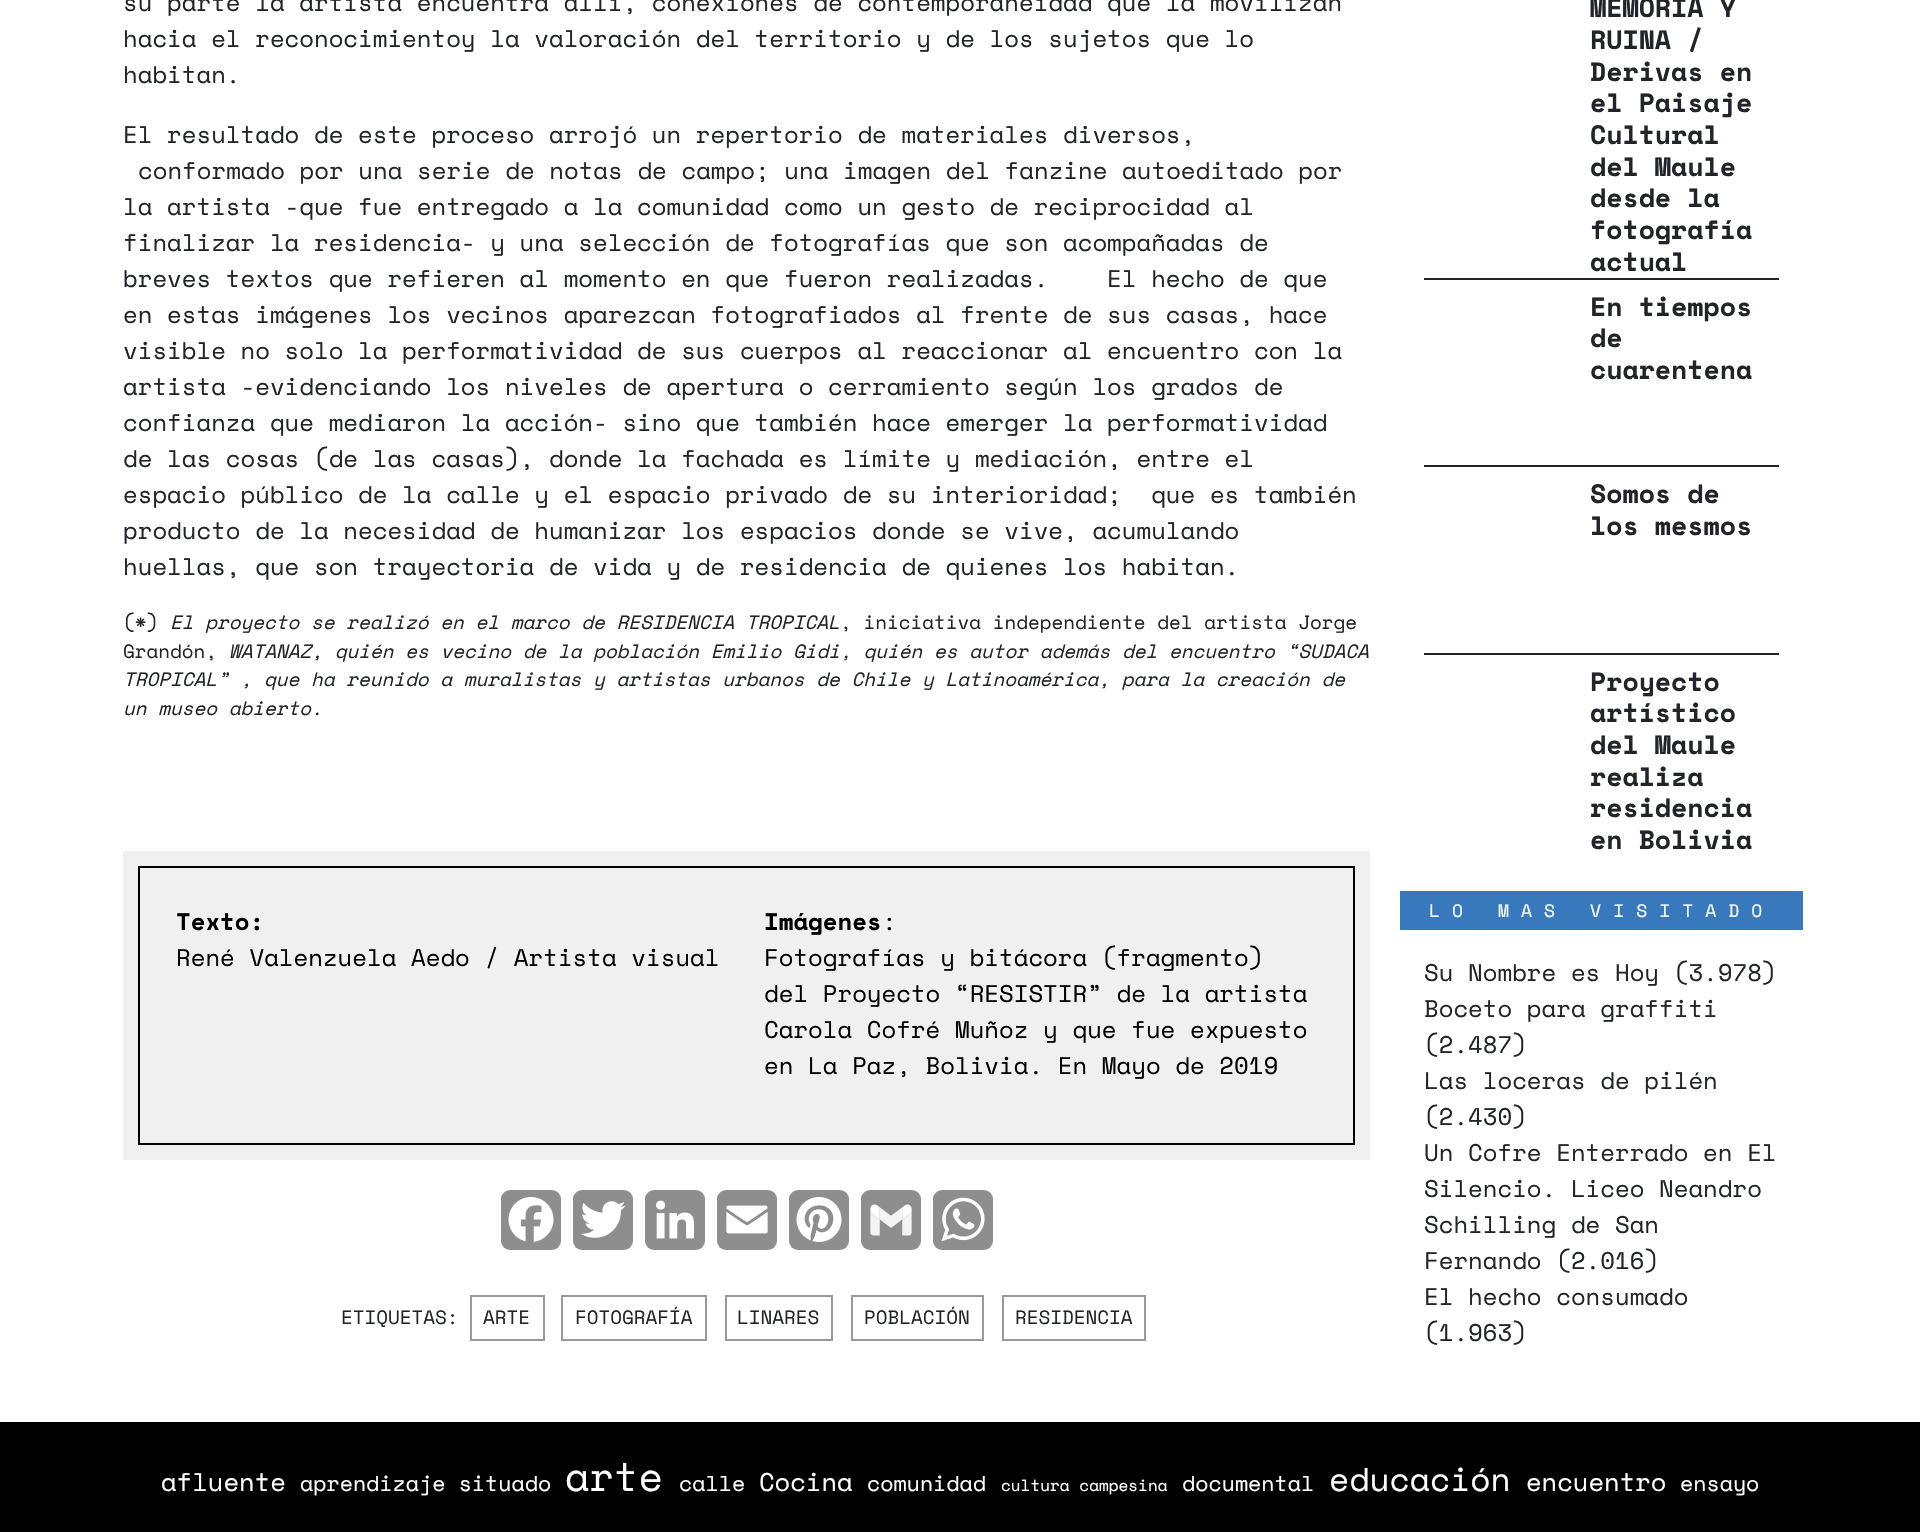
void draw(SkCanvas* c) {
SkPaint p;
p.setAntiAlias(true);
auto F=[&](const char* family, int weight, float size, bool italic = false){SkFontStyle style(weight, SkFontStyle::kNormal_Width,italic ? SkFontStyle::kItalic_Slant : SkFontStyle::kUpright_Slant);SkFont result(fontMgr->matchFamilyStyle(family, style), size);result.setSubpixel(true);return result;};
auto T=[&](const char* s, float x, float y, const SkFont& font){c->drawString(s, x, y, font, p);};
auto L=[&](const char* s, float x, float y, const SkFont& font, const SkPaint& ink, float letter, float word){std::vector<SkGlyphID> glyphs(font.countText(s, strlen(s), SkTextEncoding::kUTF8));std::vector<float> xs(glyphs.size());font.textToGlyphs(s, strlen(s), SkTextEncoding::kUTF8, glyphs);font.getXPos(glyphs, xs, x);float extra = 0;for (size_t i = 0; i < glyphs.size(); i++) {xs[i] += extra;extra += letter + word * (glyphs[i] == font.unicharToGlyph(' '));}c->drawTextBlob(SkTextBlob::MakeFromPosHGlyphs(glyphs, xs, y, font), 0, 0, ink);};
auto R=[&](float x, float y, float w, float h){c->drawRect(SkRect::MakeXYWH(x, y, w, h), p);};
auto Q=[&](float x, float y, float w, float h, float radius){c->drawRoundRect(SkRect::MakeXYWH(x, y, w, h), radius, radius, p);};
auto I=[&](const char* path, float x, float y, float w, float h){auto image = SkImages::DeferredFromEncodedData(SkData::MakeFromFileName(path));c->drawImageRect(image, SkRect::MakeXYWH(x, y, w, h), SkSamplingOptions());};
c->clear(0xffffffff);
auto f1 = F("Space Mono",400,24);
p.setColor(0xff212529);
T("su parte la artista encuentra allí, conexiones de contemporaneidad que la movilizan",123,11,f1);
T("hacia el reconocimientoy la valoración del territorio y de los sujetos que lo",123,47,f1);
T("habitan.",123,83,f1);
T("El resultado de este proceso arrojó un repertorio de materiales diversos,",123,143,f1);
T("conformado por una serie de notas de campo; una imagen del fanzine autoeditado por",138,179,f1);
T("la artista -que fue entregado a la comunidad como un gesto de reciprocidad al",123,215,f1);
T("finalizar la residencia- y una selección de fotografías que son acompañadas de",123,251,f1);
T("breves textos que refieren al momento en que fueron realizadas.    El hecho de que",123,287,f1);
T("en estas imágenes los vecinos aparezcan fotografiados al frente de sus casas, hace",123,323,f1);
T("visible no solo la performatividad de sus cuerpos al reaccionar al encuentro con la",123,359,f1);
T("artista -evidenciando los niveles de apertura o cerramiento según los grados de",123,395,f1);
T("confianza que mediaron la acción- sino que también hace emerger la performatividad",123,431,f1);
T("de las cosas (de las casas), donde la fachada es límite y mediación, entre el",123,467,f1);
T("espacio público de la calle y el espacio privado de su interioridad;  que es también",123,503,f1);
T("producto de la necesidad de humanizar los espacios donde se vive, acumulando",123,539,f1);
T("huellas, que son trayectoria de vida y de residencia de quienes los habitan.",123,575,f1);
auto f2 = F("Space Mono",400,19.2);
T("(*)",123,629,f2);
auto f3 = F("Space Mono",400,19.2,true);
T("El proyecto se realizó en el marco de RESIDENCIA TROPICAL",170,629,f3);
T(", iniciativa independiente del artista Jorge",840,629,f2);
T("Grandón,",123,658,f2);
T("WATANAZ, quién es vecino de la población Emilio Gidi, quién es autor además del encuentro “SUDACA",229,658,f3);
T("TROPICAL” , que ha reunido a muralistas y artistas urbanos de Chile y Latinoamérica, para la creación de",123,686,f3);
T("un museo abierto.",123,715,f3);
p.setColor(0xfff0f0f0);
R(123,851,1247,309);
p.setStroke(true);
p.setStrokeWidth(2);
p.setColor(0xff000000);
c->drawRect(SkRect::MakeXYWH(139,867,1215,277),p);
auto f4 = F("Space Mono",700,24);
p.setStroke(false);
T("Texto:",176,930,f4);
T("René Valenzuela Aedo / Artista visual",176,966,f1);
T("Imágenes",764,930,f4);
T(":",882,930,f1);
T("Fotografías y bitácora (fragmento)",764,966,f1);
T("del Proyecto “RESISTIR” de la artista",764,1002,f1);
T("Carola Cofré Muñoz y que fue expuesto",764,1038,f1);
T("en La Paz, Bolivia. En Mayo de 2019",764,1074,f1);
p.setColor(0xff8e8e8e);
Q(501,1190,60,60,9);
I("1.png",508,1197,46,45);
Q(573,1190,60,60,9);
I("2.png",580,1201,46,37);
Q(645,1190,60,60,9);
I("3.png",656,1200,38,39);
Q(717,1190,60,60,9);
I("4.png",726,1205,42,29);
Q(789,1190,60,60,9);
I("5.png",796,1197,46,45);
Q(861,1190,60,60,9);
I("6.png",870,1204,42,32);
Q(933,1190,60,60,9);
I("7.png",941,1197,44,45);
p.setColor(0xff212529);
T("ETIQUETAS:",341,1324,f2);
p.setStroke(true);
p.setColor(0xff999999);
c->drawRect(SkRect::MakeXYWH(471,1296,73,44),p);
p.setStroke(false);
p.setColor(0xff212529);
T("ARTE",483,1324,f2);
p.setStroke(true);
p.setColor(0xff999999);
c->drawRect(SkRect::MakeXYWH(562,1296,144,44),p);
p.setStroke(false);
p.setColor(0xff212529);
T("FOTOGRAFÍA",575,1324,f2);
p.setStroke(true);
p.setColor(0xff999999);
c->drawRect(SkRect::MakeXYWH(726,1296,106,44),p);
p.setStroke(false);
p.setColor(0xff212529);
T("LINARES",737,1324,f2);
p.setStroke(true);
p.setColor(0xff999999);
c->drawRect(SkRect::MakeXYWH(852,1296,131,44),p);
p.setStroke(false);
p.setColor(0xff212529);
T("POBLACIÓN",864,1324,f2);
p.setStroke(true);
p.setColor(0xff999999);
c->drawRect(SkRect::MakeXYWH(1003,1296,142,44),p);
p.setStroke(false);
p.setColor(0xff212529);
T("RESIDENCIA",1015,1324,f2);
R(1424,278,355,2);
auto f5 = F("Space Mono",700,26.5);
T("MEMORIA Y",1590,17,f5);
T("RUINA /",1590,49,f5);
T("Derivas en",1590,81,f5);
T("el Paisaje",1590,112,f5);
T("Cultural",1590,144,f5);
T("del Maule",1590,176,f5);
T("desde la",1590,207,f5);
T("fotografía",1590,239,f5);
T("actual",1590,271,f5);
R(1424,465,355,2);
T("En tiempos",1590,316,f5);
T("de",1590,347,f5);
T("cuarentena",1590,379,f5);
R(1424,653,355,2);
T("Somos de",1590,503,f5);
T("los mesmos",1590,535,f5);
T("Proyecto",1590,691,f5);
T("artístico",1590,722,f5);
T("del Maule",1590,754,f5);
T("realiza",1590,786,f5);
T("residencia",1590,817,f5);
T("en Bolivia",1590,849,f5);
p.setColor(0xff3879bd);
R(1400,891,403,39);
auto f6 = F("Space Mono",400,18);
p.setColor(0xffffffff);
L("LO MAS VISITADO",1429,917,f6,p,12,0);
p.setColor(0xff212529);
T("Su Nombre es Hoy (3.978)",1424,981,f1);
T("Boceto para graffiti",1424,1017,f1);
T("(2.487)",1424,1053,f1);
T("Las loceras de pilén",1424,1089,f1);
T("(2.430)",1424,1125,f1);
T("Un Cofre Enterrado en El",1424,1161,f1);
T("Silencio. Liceo Neandro",1424,1197,f1);
T("Schilling de San",1424,1233,f1);
T("Fernando (2.016)",1424,1269,f1);
T("El hecho consumado",1424,1305,f1);
T("(1.963)",1424,1341,f1);
p.setColor(0xff000000);
R(0,1422,1920,110);
auto f7 = F("Space Mono",400,25.5);
p.setColor(0xffffffff);
T("afluente",161,1491,f7);
auto f8 = F("Space Mono",400,21.6);
T("aprendizaje situado",300,1491,f8);
auto f9 = F("Space Mono",400,40);
T("arte",565,1491,f9);
T("calle",679,1491,f8);
T("Cocina",759,1491,f7);
T("comunidad",867,1491,f8);
auto f10 = F("Space Mono",400,16);
T("cultura campesina",1001,1491,f10);
T("documental",1182,1491,f8);
auto f11 = F("Space Mono",400,33);
T("educación",1329,1491,f11);
T("encuentro",1526,1491,f7);
T("ensayo",1680,1491,f8);
}
